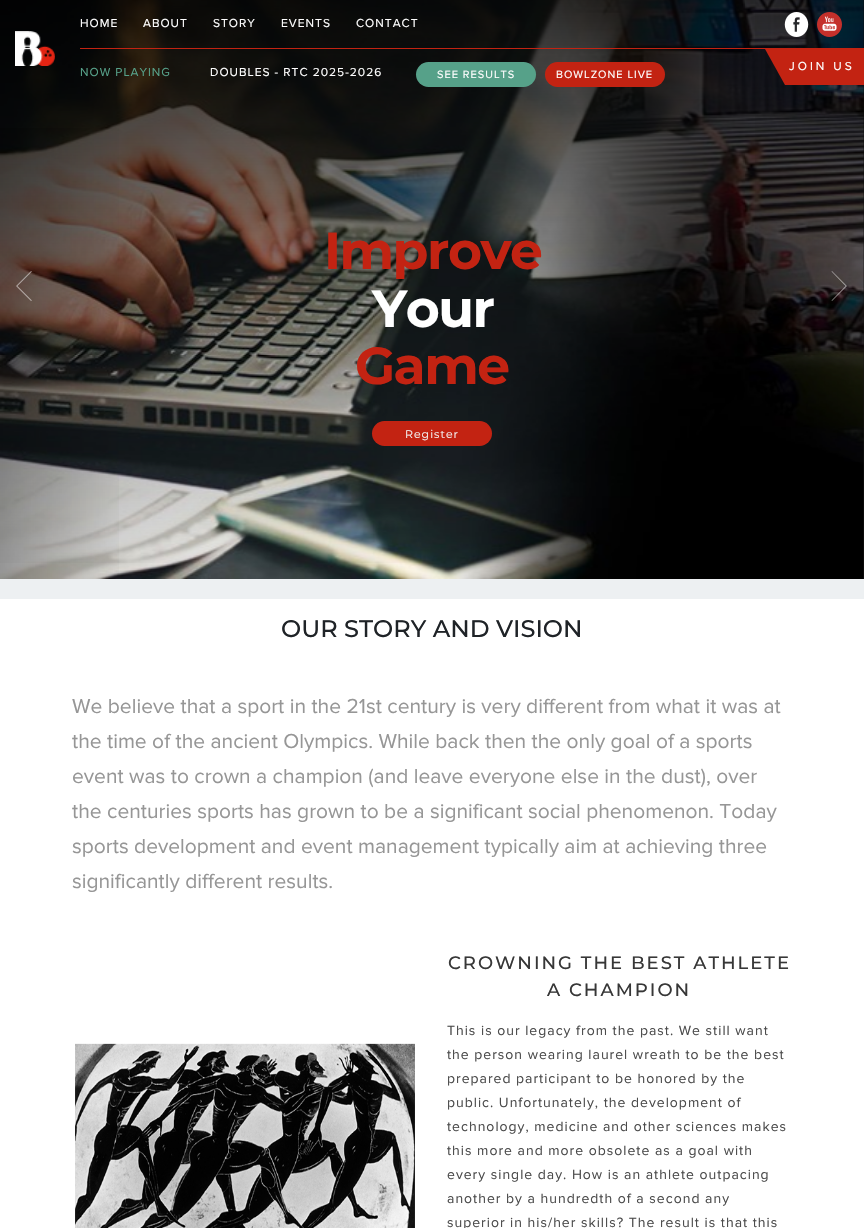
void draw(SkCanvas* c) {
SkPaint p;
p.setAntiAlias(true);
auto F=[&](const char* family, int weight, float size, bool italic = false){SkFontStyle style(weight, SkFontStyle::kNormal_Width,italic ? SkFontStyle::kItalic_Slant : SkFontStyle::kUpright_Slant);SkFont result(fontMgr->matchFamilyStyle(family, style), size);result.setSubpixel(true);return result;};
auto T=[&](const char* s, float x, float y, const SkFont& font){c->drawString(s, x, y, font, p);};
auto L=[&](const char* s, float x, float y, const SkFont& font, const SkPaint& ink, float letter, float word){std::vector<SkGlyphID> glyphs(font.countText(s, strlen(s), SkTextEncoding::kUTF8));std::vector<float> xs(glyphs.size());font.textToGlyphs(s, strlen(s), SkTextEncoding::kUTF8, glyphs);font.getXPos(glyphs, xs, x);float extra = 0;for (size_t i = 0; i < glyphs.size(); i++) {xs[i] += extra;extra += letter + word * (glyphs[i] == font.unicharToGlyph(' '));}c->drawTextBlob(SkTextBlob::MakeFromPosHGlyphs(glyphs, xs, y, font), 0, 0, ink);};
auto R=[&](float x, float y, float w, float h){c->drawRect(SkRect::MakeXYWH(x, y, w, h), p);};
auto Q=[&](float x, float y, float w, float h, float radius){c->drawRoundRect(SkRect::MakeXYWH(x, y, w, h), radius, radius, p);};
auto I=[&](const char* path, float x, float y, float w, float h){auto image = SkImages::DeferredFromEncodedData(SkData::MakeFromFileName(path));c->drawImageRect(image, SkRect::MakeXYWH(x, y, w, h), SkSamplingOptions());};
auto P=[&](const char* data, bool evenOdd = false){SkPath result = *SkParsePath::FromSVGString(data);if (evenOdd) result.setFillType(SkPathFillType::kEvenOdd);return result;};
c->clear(0xffffffff);
p.setColor(0xff292725);
R(863,0,1,579);
I("4.png",0,0,864,579);
{
const SkColor colors[] = {0xcc000000,0x00000000};
const float stops[] = {0,1};
const SkPoint ends[] = {{432,-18}, {432,579}};
p.setShader(SkGradientShader::MakeLinear(ends, colors, stops, 2, SkTileMode::kClamp));
p.setAlpha(255);
}
R(0,0,864,563);
I("1.png",15,31,40,35);
{
const SkColor colors[] = {0x00000000,0x40000000};
const float stops[] = {0,1};
const SkPoint ends[] = {{734,281}, {864,281}};
p.setShader(SkGradientShader::MakeLinear(ends, colors, stops, 2, SkTileMode::kClamp));
p.setAlpha(255);
}
R(755,0,109,579);
p.setShader(nullptr);
p.setColor(0xffc32312);
R(80,48,784,1);
auto f1 = F("Proxima Nova",400,12);
p.setColor(0xffffffff);
L("HOME",80,27,f1,p,1,0);
L("ABOUT",143,27,f1,p,1,0);
L("STORY",213,27,f1,p,1,0);
L("EVENTS",281,27,f1,p,1,0);
L("CONTACT",356,27,f1,p,1,0);
I("2.png",784,12,25,25);
I("3.png",817,12,25,25);
p.setColor(0xffc32312);
c->drawPath(P("M765 49h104l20 36h-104z"),p);
p.setColor(0xffffffff);
L("JOIN US",789,70,f1,p,3,0);
p.setColor(0xff56a189);
L("NOW PLAYING",80,76,f1,p,1,0);
p.setColor(0xffffffff);
L("DOUBLES - RTC 2025-2026",210,76,f1,p,1,0);
p.setColor(0xff56a189);
Q(416,62,120,25,12.5);
auto f2 = F("Proxima Nova",400,11);
p.setColor(0xffffffff);
L("SEE RESULTS",437,78,f2,p,1,0);
p.setColor(0xffc32312);
Q(545,62,120,25,12.5);
p.setColor(0xffffffff);
L("BOWLZONE LIVE",556,78,f2,p,1,0);
{
const SkColor colors[] = {0x40000000,0x00000000};
const float stops[] = {0,1};
const SkPoint ends[] = {{0,281}, {130,281}};
p.setShader(SkGradientShader::MakeLinear(ends, colors, stops, 2, SkTileMode::kClamp));
p.setAlpha(255);
}
R(0,128,119,451);
p.setShader(nullptr);
p.setColor(0x80ffffff);
c->drawPath(P("M32 271.5l-1-.5l-15 15l15 15l1-.5l-14.5-14.5z"),p);
auto f3 = F("Montserrat",700,52);
p.setColor(0xffc32312);
L("Improve",324,269,f3,p,-1.5,0);
p.setColor(0xffffffff);
L("Your",372,327,f3,p,-1.5,0);
p.setColor(0xffc32312);
L("Game",355,384,f3,p,-1.5,0);
Q(372,421,120,25,12.5);
auto f4 = F("Montserrat",400,11);
p.setColor(0xfff4f4f4);
L("Register",405,438,f4,p,1,0);
p.setColor(0x80ffffff);
c->drawPath(P("M831.5 271.5l.5-.5l15 15l-15 15l-.5-.5l14-14.5z"),p);
p.setColor(0xffedf0f2);
R(0,579,864,20);
auto f5 = F("Montserrat",500,24);
p.setColor(0xff1f2327);
T("OUR STORY AND VISION",281,637,f5);
auto f6 = F("Proxima Nova",400,21);
p.setColor(0xff969696);
T("We believe that a sport in the 21st century is very different from what it was at",72,713,f6);
T("the time of the ancient Olympics. While back then the only goal of a sports",72,748,f6);
T("event was to crown a champion (and leave everyone else in the dust), over",72,783,f6);
T("the centuries sports has grown to be a significant social phenomenon. Today",72,818,f6);
T("sports development and event management typically aim at achieving three",72,853,f6);
T("significantly different results.",72,888,f6);
auto f7 = F("Montserrat",500,18);
p.setColor(0xff373737);
L("CROWNING THE BEST ATHLETE",448,969,f7,p,2,0);
L("A CHAMPION",547,996,f7,p,2,0);
I("5.png",75,1043,340,185);
auto f8 = F("Proxima Nova",400,14);
p.setColor(0xff4b4b4b);
L("This is our legacy from the past. We still want",447,1035,f8,p,1,0);
L("the person wearing laurel wreath to be the best",447,1059,f8,p,1,0);
L("prepared participant to be honored by the",447,1083,f8,p,1,0);
L("public. Unfortunately, the development of",447,1107,f8,p,1,0);
L("technology, medicine and other sciences makes",447,1131,f8,p,1,0);
L("this more and more obsolete as a goal with",447,1155,f8,p,1,0);
L("every single day. How is an athlete outpacing",447,1179,f8,p,1,0);
L("another by a hundredth of a second any",447,1203,f8,p,1,0);
L("superior in his/her skills? The result is that this",447,1227,f8,p,1,0);
}
